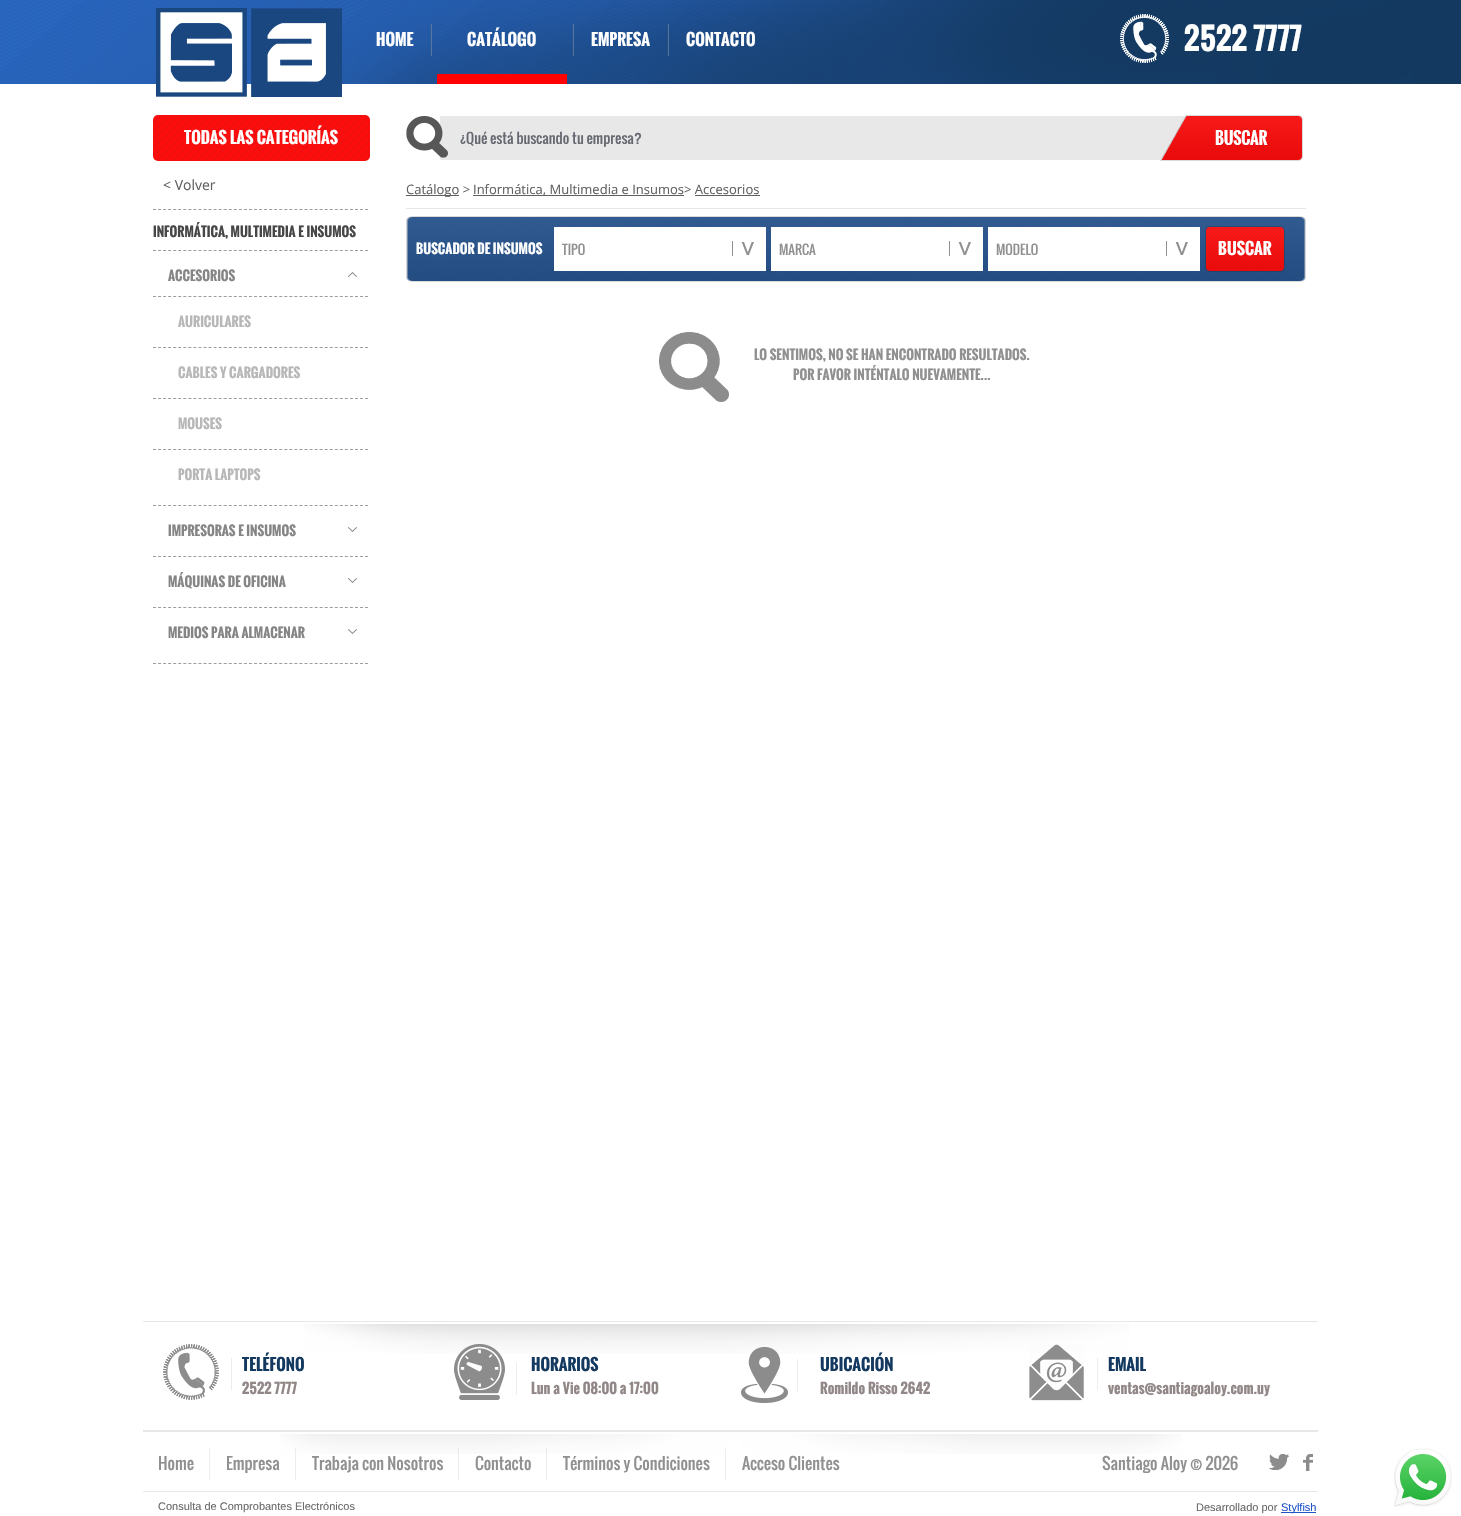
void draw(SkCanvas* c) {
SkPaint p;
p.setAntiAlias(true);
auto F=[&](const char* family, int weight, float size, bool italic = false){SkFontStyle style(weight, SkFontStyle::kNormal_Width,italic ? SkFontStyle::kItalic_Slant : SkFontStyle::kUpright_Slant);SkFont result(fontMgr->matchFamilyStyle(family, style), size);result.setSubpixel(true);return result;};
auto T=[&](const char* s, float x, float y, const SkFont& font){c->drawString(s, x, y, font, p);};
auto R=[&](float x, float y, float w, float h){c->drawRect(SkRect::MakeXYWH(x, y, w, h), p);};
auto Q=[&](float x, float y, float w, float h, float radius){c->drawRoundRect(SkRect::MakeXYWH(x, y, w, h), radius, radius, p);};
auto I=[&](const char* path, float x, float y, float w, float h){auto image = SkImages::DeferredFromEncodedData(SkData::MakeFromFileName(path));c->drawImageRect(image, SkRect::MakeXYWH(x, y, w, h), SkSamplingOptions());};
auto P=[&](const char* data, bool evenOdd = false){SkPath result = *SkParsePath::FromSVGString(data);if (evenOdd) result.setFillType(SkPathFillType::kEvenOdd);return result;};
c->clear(0xffffffff);
p.setColor(0xffededed);
R(546,1448,1,32);
I("1.png",0,0,1461,84);
I("2.png",156,8,186,89);
auto f1 = F("Oswald",700,16);
p.setColor(0xffffffff);
T("HOME",376,46,f1);
I("3.png",430,24,2,32);
p.setColor(0xffff0101);
R(437,74,130,10);
p.setColor(0xffffffff);
T("CATÁLOGO",467,46,f1);
I("4.png",572,24,2,32);
T("EMPRESA",591,46,f1);
I("5.png",667,24,2,32);
T("CONTACTO",686,46,f1);
I("6.png",1120,14,49,49);
auto f2 = F("Oswald",700,30);
T("2522 7777",1184,51,f2);
I("7.png",153,115,217,46);
T("TODAS LAS CATEGORÍAS",184,144,f1);
auto f3 = F("Open Sans",400,14);
p.setColor(0xff606060);
T("< Volver",163,190,f3);
p.setStroke(true);
p.setStrokeWidth(1);
p.setColor(0xff9d9d9d);
p.setPathEffect(SkDashPathEffect::Make({{3,2.05f}}, 0));
c->drawPath(P("M153 209.5h215"),p);
p.setPathEffect(nullptr);
p.setPathEffect(SkDashPathEffect::Make({{3,2.05f}}, 0));
c->drawPath(P("M153 663.5h215"),p);
p.setPathEffect(nullptr);
auto f4 = F("Oswald",700,13);
p.setStroke(false);
p.setColor(0xff474747);
T("INFORMÁTICA, MULTIMEDIA E INSUMOS",153,237,f4);
I("8.png",348,272,9,5);
p.setStroke(true);
p.setColor(0xff9d9d9d);
p.setPathEffect(SkDashPathEffect::Make({{3,2.05f}}, 0));
c->drawPath(P("M153 250.5h215"),p);
p.setPathEffect(nullptr);
p.setStroke(false);
p.setColor(0xff858585);
T("ACCESORIOS",168,281,f4);
p.setStroke(true);
p.setColor(0xff9d9d9d);
p.setPathEffect(SkDashPathEffect::Make({{3,2.05f}}, 0));
c->drawPath(P("M153 296.5h215"),p);
p.setPathEffect(nullptr);
p.setStroke(false);
p.setColor(0xffb7b7b7);
T("AURICULARES",178,327,f4);
p.setStroke(true);
p.setColor(0xff9d9d9d);
p.setPathEffect(SkDashPathEffect::Make({{3,2.05f}}, 0));
c->drawPath(P("M153 347.5h215"),p);
p.setPathEffect(nullptr);
p.setStroke(false);
p.setColor(0xffb7b7b7);
T("CABLES Y CARGADORES",178,378,f4);
p.setStroke(true);
p.setColor(0xff9d9d9d);
p.setPathEffect(SkDashPathEffect::Make({{3,2.05f}}, 0));
c->drawPath(P("M153 398.5h215"),p);
p.setPathEffect(nullptr);
p.setStroke(false);
p.setColor(0xffb7b7b7);
T("MOUSES",178,429,f4);
p.setStroke(true);
p.setColor(0xff9d9d9d);
p.setPathEffect(SkDashPathEffect::Make({{3,2.05f}}, 0));
c->drawPath(P("M153 449.5h215"),p);
p.setPathEffect(nullptr);
p.setStroke(false);
p.setColor(0xffb7b7b7);
T("PORTA LAPTOPS",178,480,f4);
I("9.png",348,527,9,5);
p.setStroke(true);
p.setColor(0xff9d9d9d);
p.setPathEffect(SkDashPathEffect::Make({{3,2.05f}}, 0));
c->drawPath(P("M153 505.5h215"),p);
p.setPathEffect(nullptr);
p.setStroke(false);
p.setColor(0xff858585);
T("IMPRESORAS E INSUMOS",168,536,f4);
I("9.png",348,578,9,5);
p.setStroke(true);
p.setColor(0xff9d9d9d);
p.setPathEffect(SkDashPathEffect::Make({{3,2.05f}}, 0));
c->drawPath(P("M153 556.5h215"),p);
p.setPathEffect(nullptr);
p.setStroke(false);
p.setColor(0xff858585);
T("MÁQUINAS DE OFICINA",168,587,f4);
I("9.png",348,629,9,5);
p.setStroke(true);
p.setColor(0xff9d9d9d);
p.setPathEffect(SkDashPathEffect::Make({{3,2.05f}}, 0));
c->drawPath(P("M153 607.5h215"),p);
p.setPathEffect(nullptr);
p.setStroke(false);
p.setColor(0xff858585);
T("MEDIOS PARA ALMACENAR",168,638,f4);
p.setColor(0xffe8e8e8);
Q(440,116,770,44,1);
I("10.png",406,116,42,42);
auto f5 = F("Oswald",400,14);
p.setColor(0xff656870);
T("¿Qué está buscando tu empresa?",460,144,f5);
I("11.png",1160,115,143,46);
p.setColor(0xffe7e7e7);
R(406,208,900,1);
p.setColor(0xff606060);
R(406,195,53,1);
auto f6 = F("Open Sans",400,13);
T("Catálogo >",406,194,f6);
R(473,195,211,1);
T("Informática, Multimedia e Insumos> Accesorios",473,194,f6);
R(695,195,65,1);
I("12.png",406,216,900,66);
p.setColor(0xffffffff);
T("BUSCADOR DE INSUMOS",416,254,f4);
R(554,227,212,44);
auto f7 = F("Oswald",400,13);
p.setColor(0xff909090);
T("TIPO",562,255,f7);
R(732,241,1,15);
auto f8 = F("DejaVu Sans Mono",400,25);
c->save();
c->rotate(90,740,241);
T(">",740,241,f8);
c->restore();
p.setColor(0xffffffff);
R(771,227,212,44);
p.setColor(0xff909090);
T("MARCA",779,255,f7);
R(949,241,1,15);
c->save();
c->rotate(90,957,241);
T(">",957,241,f8);
c->restore();
p.setColor(0xffffffff);
R(988,227,212,44);
p.setColor(0xff909090);
T("MODELO",996,255,f7);
R(1166,241,1,15);
c->save();
c->rotate(90,1174,241);
T(">",1174,241,f8);
c->restore();
I("13.png",1205,226,80,46);
p.setColor(0xffffffff);
T("BUSCAR",1218,255,f1);
I("14.png",659,332,70,70);
p.setColor(0xff909090);
T("LO SENTIMOS, NO SE HAN ENCONTRADO RESULTADOS.",754,360,f4);
T("POR FAVOR INTÉNTALO NUEVAMENTE...",793,380,f4);
I("15.png",304,1324,825,30);
p.setColor(0xffe7e7e7);
R(143,1321,1175,1);
R(143,1430,1175,2);
I("16.png",163,1344,69,56);
p.setColor(0xff133960);
T("TELÉFONO",242,1371,f1);
auto f9 = F("Oswald",700,14);
p.setColor(0xff928787);
T("2522 7777",242,1394,f9);
I("17.png",454,1344,63,56);
p.setColor(0xff133960);
T("HORARIOS",531,1371,f1);
p.setColor(0xff928787);
T("Lun a Vie 08:00 a 17:00",531,1394,f9);
I("18.png",741,1347,57,56);
p.setColor(0xff133960);
T("UBICACIÓN",820,1371,f1);
p.setColor(0xff928787);
T("Romildo Risso 2642",820,1394,f9);
I("19.png",1029,1344,69,57);
p.setColor(0xff133960);
T("EMAIL",1108,1371,f1);
p.setColor(0xff928787);
T("ventas@santiagoaloy.com.uy",1108,1394,f9);
I("20.png",280,1434,902,20);
p.setColor(0xffe7e7e7);
R(143,1491,1175,1);
auto f10 = F("Oswald",400,16);
p.setColor(0xff909090);
T("Home",158,1470,f10);
p.setColor(0xffededed);
R(209,1448,1,32);
p.setColor(0xff909090);
T("Empresa",226,1470,f10);
p.setColor(0xffededed);
R(295,1448,1,32);
p.setColor(0xff909090);
T("Trabaja con Nosotros",312,1470,f10);
I("21.png",458,1448,2,32);
T("Contacto",475,1470,f10);
T("Términos y Condiciones",563,1470,f10);
p.setColor(0xffededed);
R(725,1448,1,32);
p.setColor(0xff909090);
T("Acceso Clientes",742,1470,f10);
T("Santiago Aloy © 2026",1102,1470,f10);
I("22.png",1269,1454,20,16);
I("23.png",1303,1454,10,17);
auto f11 = F("Liberation Sans",400,11);
p.setColor(0xff696969);
T("Consulta de Comprobantes Electrónicos",158,1510,f11);
T("Desarrollado por",1196,1511,f11);
p.setColor(0xff2052c9);
R(1281,1512,35,1);
T("Stylfish",1281,1511,f11);
I("24.png",1394,1448,58,59);
}
